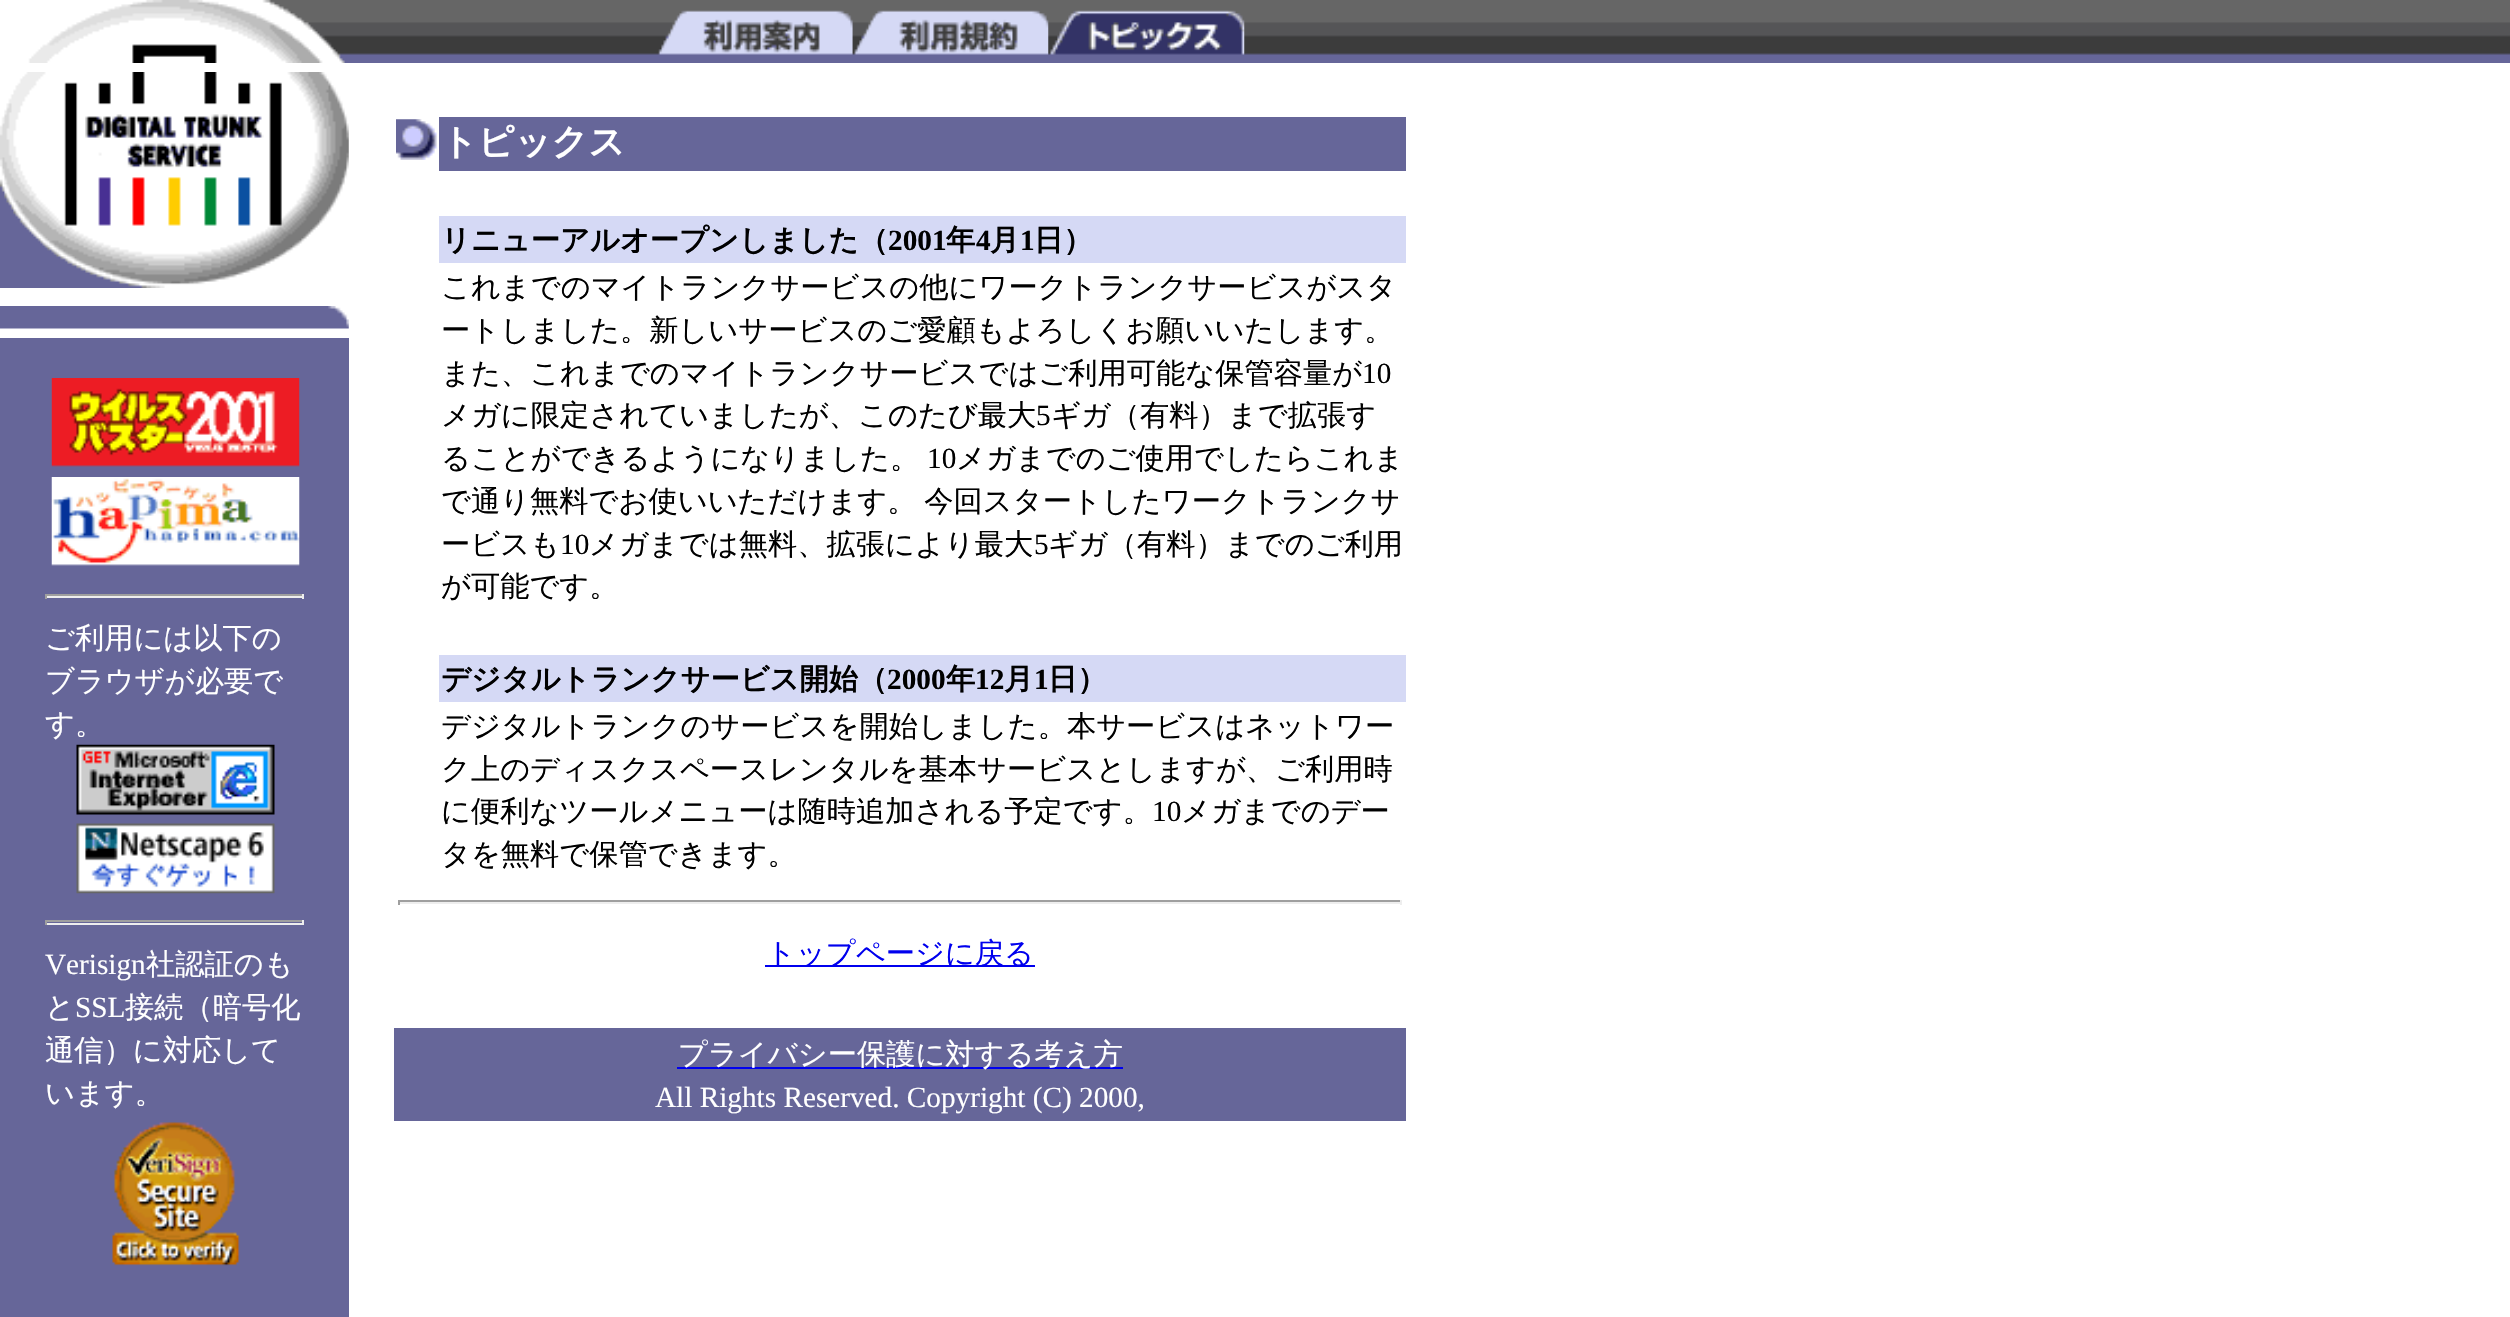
void draw(SkCanvas* c) {
SkPaint p;
p.setAntiAlias(true);
auto F=[&](const char* family, int weight, float size, bool italic = false){SkFontStyle style(weight, SkFontStyle::kNormal_Width,italic ? SkFontStyle::kItalic_Slant : SkFontStyle::kUpright_Slant);SkFont result(fontMgr->matchFamilyStyle(family, style), size);result.setSubpixel(true);return result;};
auto T=[&](const char* s, float x, float y, const SkFont& font){c->drawString(s, x, y, font, p);};
auto L=[&](const char* s, float x, float y, const SkFont& font, const SkPaint& ink, float letter, float word){std::vector<SkGlyphID> glyphs(font.countText(s, strlen(s), SkTextEncoding::kUTF8));std::vector<float> xs(glyphs.size());font.textToGlyphs(s, strlen(s), SkTextEncoding::kUTF8, glyphs);font.getXPos(glyphs, xs, x);float extra = 0;for (size_t i = 0; i < glyphs.size(); i++) {xs[i] += extra;extra += letter + word * (glyphs[i] == font.unicharToGlyph(' '));}c->drawTextBlob(SkTextBlob::MakeFromPosHGlyphs(glyphs, xs, y, font), 0, 0, ink);};
auto R=[&](float x, float y, float w, float h){c->drawRect(SkRect::MakeXYWH(x, y, w, h), p);};
auto I=[&](const char* path, float x, float y, float w, float h){auto image = SkImages::DeferredFromEncodedData(SkData::MakeFromFileName(path));c->drawImageRect(image, SkRect::MakeXYWH(x, y, w, h), SkSamplingOptions());};
c->clear(0xffffffff);
I("1.png",345,0,2165,63);
I("2.png",0,0,345,63);
I("3.png",658,10,195,45);
I("4.png",852,10,197,45);
I("5.png",1048,10,197,45);
I("6.png",0,72,349,216);
I("7.png",0,306,349,23);
p.setColor(0xff666699);
R(0,338,349,979);
I("8.png",51,378,249,89);
I("9.png",51,477,249,89);
p.setColor(0xff9f9f9f);
R(45,594,259,2);
p.setColor(0xffeeeeee);
R(302,594,2,5);
R(45,596,259,2);
p.setColor(0xff9f9f9f);
R(45,594,2,5);
auto f1 = F("WenQuanYi Zen Hei",500,29.25);
p.setColor(0xffffffff);
T("ご利用には以下の",45,648,f1);
T("ブラウザが必要で",45,691,f1);
T("す。",45,734,f1);
I("10.png",76,744,199,71);
I("11.png",76,823,199,71);
p.setColor(0xff9f9f9f);
R(45,920,259,2);
p.setColor(0xffeeeeee);
R(302,920,2,5);
R(45,923,259,2);
p.setColor(0xff9f9f9f);
R(45,920,2,5);
auto f2 = F("Liberation Serif",400,29.25);
p.setColor(0xffffffff);
T("Verisign",45,974,f2);
T("社認証のも",146,974,f1);
T("と",45,1017,f1);
T("SSL",75,1017,f2);
T("接続（暗号化",125,1017,f1);
T("通信）に対応して",45,1060,f1);
T("います。",45,1103,f1);
I("12.png",112,1122,128,144);
I("13.png",396,119,41,41);
p.setColor(0xff666699);
R(439,117,967,54);
auto f3 = F("WenQuanYi Zen Hei",700,36);
p.setColor(0xffffffff);
T("トピックス",441,154,f3);
p.setColor(0xffd5d9f5);
R(439,216,967,47);
auto f4 = F("WenQuanYi Zen Hei",700,29.25);
p.setColor(0xff000000);
T("リニューアルオープンしました（",441,250,f4);
auto f5 = F("Liberation Serif",700,29.25);
T("2001",888,250,f5);
T("年",946,250,f4);
T("4",976,250,f5);
T("月",990,250,f4);
T("1",1020,250,f5);
T("日）",1034,250,f4);
T("これまでのマイトランクサービスの他にワークトランクサービスがスタ",441,297,f1);
T("ートしました。新しいサービスのご愛顧もよろしくお願いいたします。",441,340,f1);
T("また、これまでのマイトランクサービスではご利用可能な保管容量が",441,383,f1);
T("10",1362,383,f2);
T("メガに限定されていましたが、このたび最大",441,425,f1);
T("5",1036,425,f2);
T("ギガ（有料）まで拡張す",1051,425,f1);
T("ることができるようになりました。",441,468,f1);
T("10",927,468,f2);
T("メガまでのご使用でしたらこれま",956,468,f1);
L("で通り無料でお使いいただけます。 今回スタートしたワークトランクサ",441,511,f1,p,0,-1);
T("ービスも",441,554,f1);
T("10",560,554,f2);
T("メガまでは無料、拡張により最大",589,554,f1);
T("5",1034,554,f2);
T("ギガ（有料）までのご利用",1048,554,f1);
T("が可能です。",441,596,f1);
p.setColor(0xffd5d9f5);
R(439,655,967,47);
p.setColor(0xff000000);
T("デジタルトランクサービス開始（",441,689,f4);
T("2000",887,689,f5);
T("年",946,689,f4);
T("12",975,689,f5);
T("月",1004,689,f4);
T("1",1034,689,f5);
T("日）",1048,689,f4);
T("デジタルトランクのサービスを開始しました。本サービスはネットワー",441,736,f1);
T("ク上のディスクスペースレンタルを基本サービスとしますが、ご利用時",441,779,f1);
T("に便利なツールメニューは随時追加される予定です。",441,821,f1);
T("10",1152,821,f2);
T("メガまでのデー",1181,821,f1);
T("タを無料で保管できます。",441,864,f1);
p.setColor(0xff9f9f9f);
R(398,900,1004,2);
p.setColor(0xffeeeeee);
R(1400,900,2,5);
R(398,902,1004,2);
p.setColor(0xff9f9f9f);
R(398,900,2,5);
p.setColor(0xff0000ee);
R(765,965,270,2);
T("トップページに戻る",766,963,f1);
p.setColor(0xff666699);
R(394,1028,1012,93);
p.setColor(0xff0000ee);
R(677,1067,446,2);
p.setColor(0xffffffff);
T("プライバシー保護に対する考え方",678,1064,f1);
T("All Rights Reserved. Copyright (C) 2000,",655,1107,f2);
}
